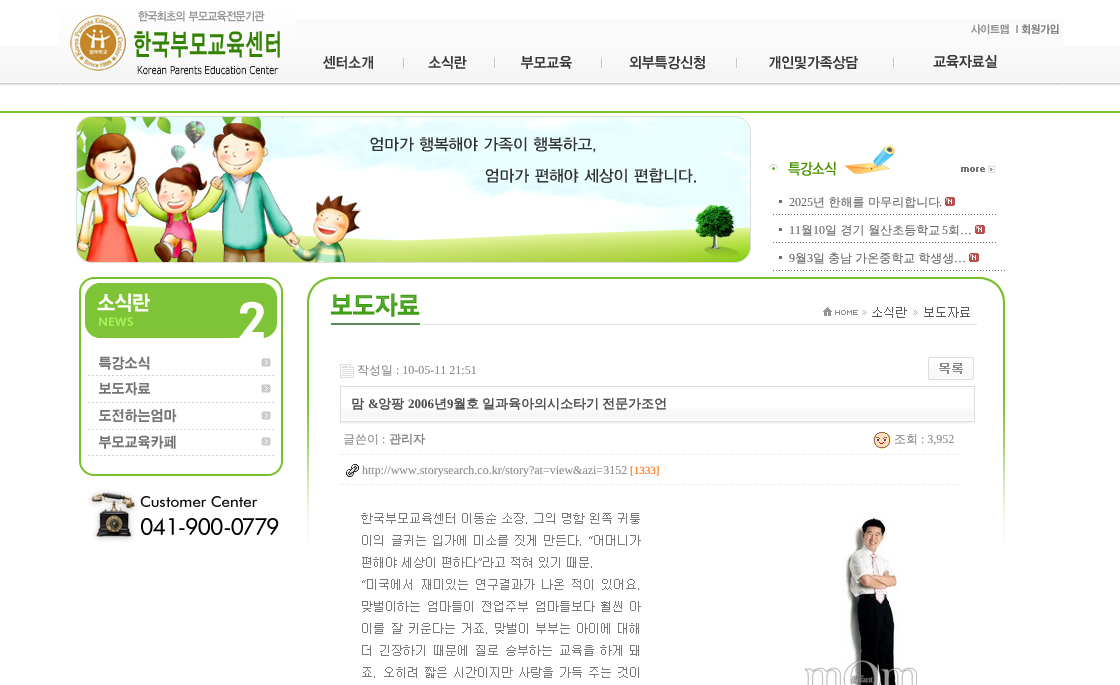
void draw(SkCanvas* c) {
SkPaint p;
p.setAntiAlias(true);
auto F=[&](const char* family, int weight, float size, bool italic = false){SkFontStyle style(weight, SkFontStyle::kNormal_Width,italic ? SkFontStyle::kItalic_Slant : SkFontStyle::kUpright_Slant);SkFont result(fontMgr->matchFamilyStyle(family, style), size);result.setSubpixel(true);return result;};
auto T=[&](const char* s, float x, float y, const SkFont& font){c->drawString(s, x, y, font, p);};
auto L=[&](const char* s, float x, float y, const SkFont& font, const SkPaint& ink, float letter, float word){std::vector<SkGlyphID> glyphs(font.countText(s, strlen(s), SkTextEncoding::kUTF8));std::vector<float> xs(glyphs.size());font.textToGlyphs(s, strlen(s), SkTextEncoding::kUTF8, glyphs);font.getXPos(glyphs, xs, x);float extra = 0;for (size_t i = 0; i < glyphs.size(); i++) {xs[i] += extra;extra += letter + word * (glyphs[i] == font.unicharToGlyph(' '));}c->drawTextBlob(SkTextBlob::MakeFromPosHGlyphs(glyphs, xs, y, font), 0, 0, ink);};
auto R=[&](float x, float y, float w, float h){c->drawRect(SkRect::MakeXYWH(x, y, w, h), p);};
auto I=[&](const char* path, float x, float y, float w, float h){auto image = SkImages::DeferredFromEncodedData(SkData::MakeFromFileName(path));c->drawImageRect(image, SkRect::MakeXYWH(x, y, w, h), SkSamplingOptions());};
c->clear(0xffffffff);
I("1.png",0,45,1120,68);
I("2.png",59,11,236,105);
p.setColor(0xfffafafa);
R(295,19,768,26);
I("3.png",295,55,768,61);
I("4.png",971,24,47,11);
I("5.png",1022,24,37,11);
I("6.png",59,116,707,147);
I("7.png",766,116,231,64);
p.setColor(0xff6c6c6c);
R(779,200,3,3);
auto f1 = F("Liberation Serif",400,12);
p.setColor(0xff666666);
T("2025",789,206,f1);
auto f2 = F("WenQuanYi Zen Hei",500,12);
T("년 한해를 마무리합니다",813,206,f2);
T(".",939,206,f1);
I("8.png",945,197,10,9);
I("9.png",773,214,224,1);
p.setColor(0xff6c6c6c);
R(779,228,3,3);
p.setColor(0xff666666);
T("11",789,234,f1);
T("월",801,234,f2);
T("10",813,234,f1);
T("일 경기 월산초등학교",825,234,f2);
T("5",942,234,f1);
T("회",948,234,f2);
T("…",960,234,f1);
I("8.png",975,225,10,9);
I("9.png",773,242,224,1);
p.setColor(0xff6c6c6c);
R(779,256,3,3);
p.setColor(0xff666666);
T("9",789,262,f1);
T("월",795,262,f2);
T("3",807,262,f1);
L("일 충남 가온중학교 학생생",813,262,f2,p,0,-.5);
T("…",954,262,f1);
I("8.png",969,253,10,9);
I("10.png",773,270,232,1);
I("11.png",75,275,208,205);
I("12.png",88,489,191,53);
I("13.png",307,277,24,270);
I("14.png",331,277,654,48);
I("15.png",340,364,14,14);
p.setColor(0xff888888);
T("작성일",357,374,f2);
T(": 10-05-11 21:51",396,374,f1);
I("16.png",928,357,46,23);
I("17.png",341,408,633,11);
p.setStroke(true);
p.setStrokeWidth(1);
p.setColor(0xffdddddd);
c->drawRect(SkRect::MakeXYWH(340.5,386.5,634,35),p);
auto f3 = F("WenQuanYi Zen Hei",700,13);
p.setStroke(false);
p.setColor(0xff505050);
T("맘",351,408,f3);
auto f4 = F("Liberation Serif",700,13);
T("&",368,408,f4);
T("앙팡",378,408,f3);
T("2006",408,408,f4);
T("년",434,408,f3);
T("9",447,408,f4);
T("월호",453,408,f3);
L("일과육아의시소타기 전문가조언",482,408,f3,p,0,-1);
I("18.png",340,422,635,2);
I("19.png",340,454,619,1);
p.setColor(0xff888888);
T("글쓴이",343,443,f2);
T(":",382,443,f1);
auto f5 = F("WenQuanYi Zen Hei",700,12);
T("관리자",389,443,f5);
I("20.png",873,432,18,17);
T("조회",894,443,f2);
T(": 3,952",921,443,f1);
I("19.png",340,484,619,1);
I("21.png",346,464,13,13);
T("http://www.storysearch.co.kr/story?at=view&azi=3152",362,474,f1);
auto f6 = F("Liberation Serif",400,11);
p.setColor(0xffff6600);
T("[1333]",630,474,f6);
I("22.png",361,513,559,172);
I("23.png",985,277,20,270);
}
